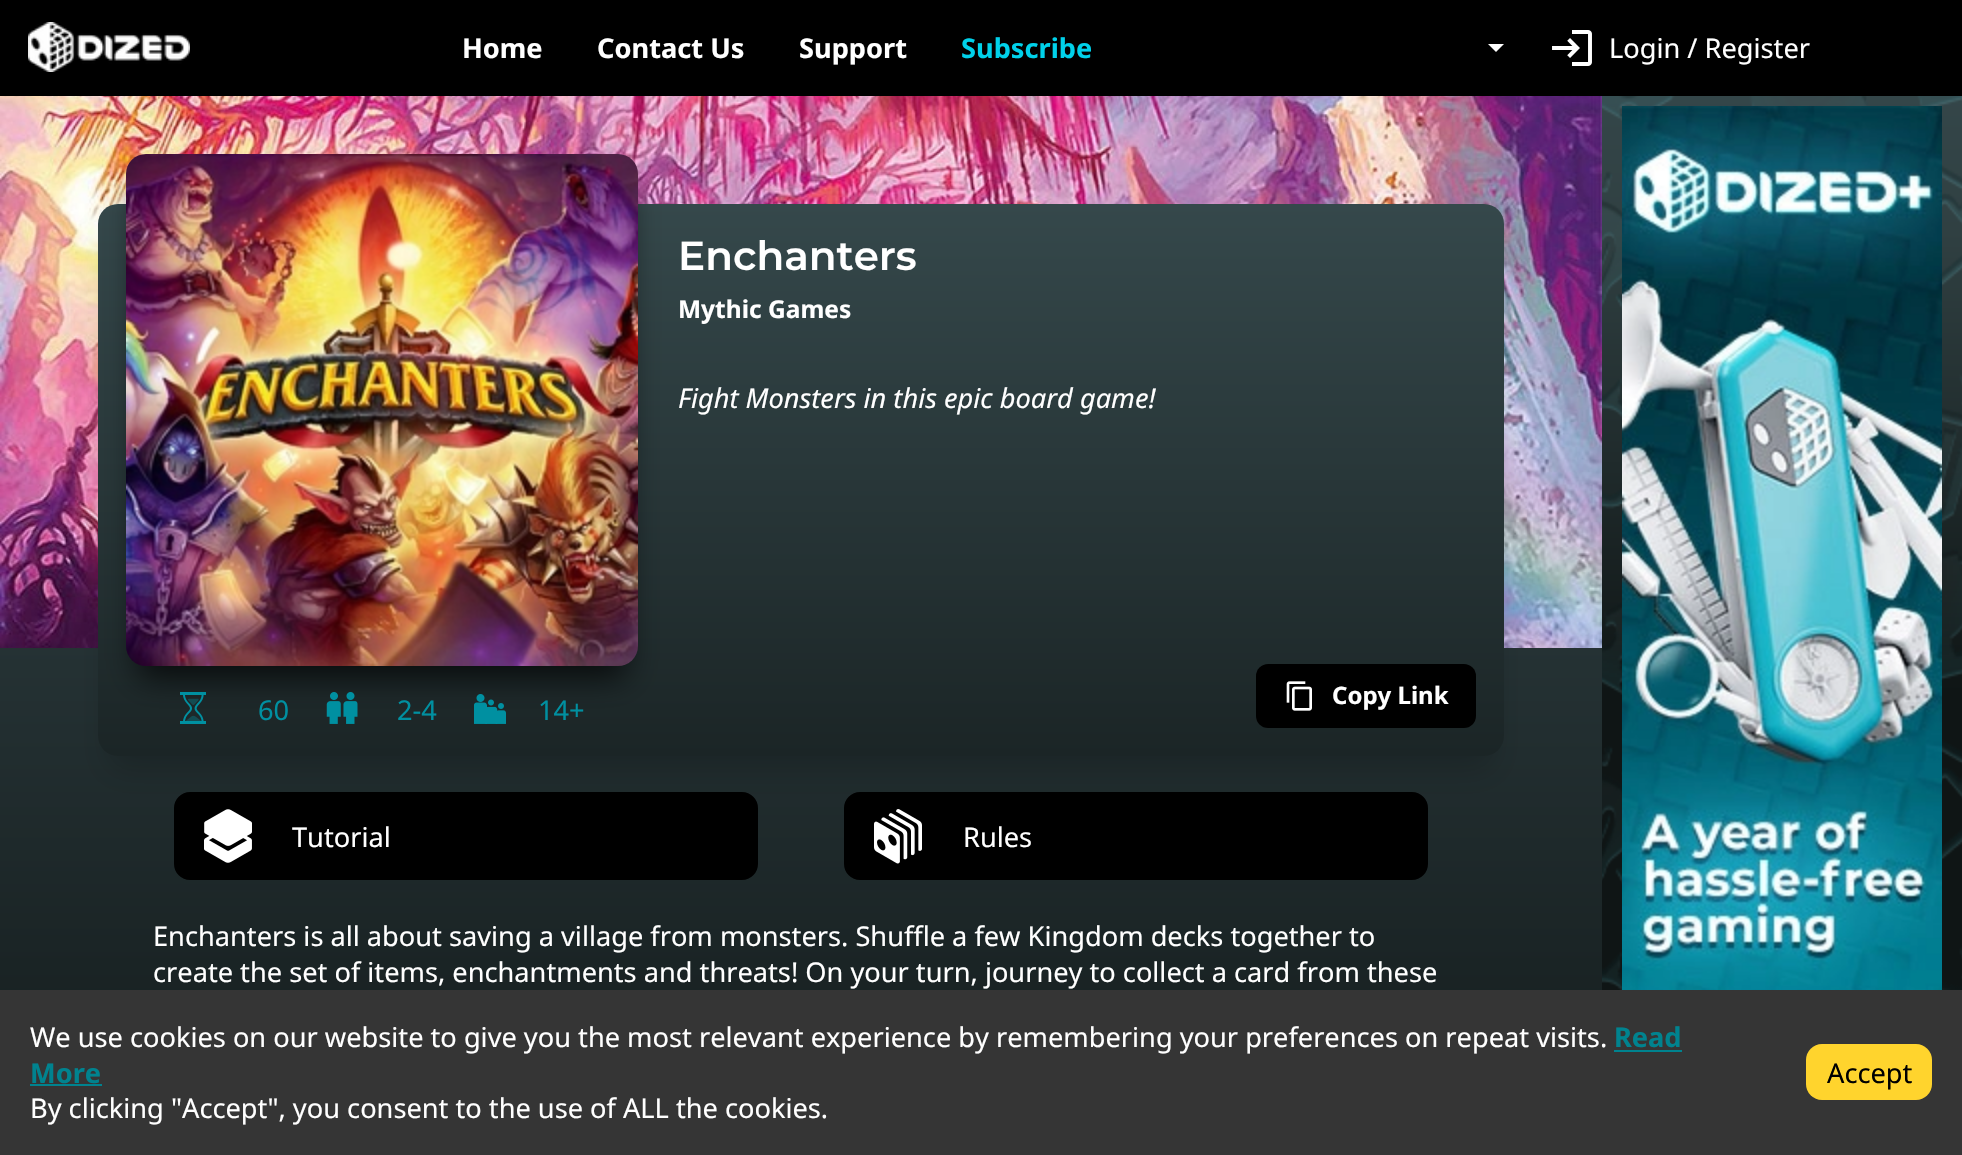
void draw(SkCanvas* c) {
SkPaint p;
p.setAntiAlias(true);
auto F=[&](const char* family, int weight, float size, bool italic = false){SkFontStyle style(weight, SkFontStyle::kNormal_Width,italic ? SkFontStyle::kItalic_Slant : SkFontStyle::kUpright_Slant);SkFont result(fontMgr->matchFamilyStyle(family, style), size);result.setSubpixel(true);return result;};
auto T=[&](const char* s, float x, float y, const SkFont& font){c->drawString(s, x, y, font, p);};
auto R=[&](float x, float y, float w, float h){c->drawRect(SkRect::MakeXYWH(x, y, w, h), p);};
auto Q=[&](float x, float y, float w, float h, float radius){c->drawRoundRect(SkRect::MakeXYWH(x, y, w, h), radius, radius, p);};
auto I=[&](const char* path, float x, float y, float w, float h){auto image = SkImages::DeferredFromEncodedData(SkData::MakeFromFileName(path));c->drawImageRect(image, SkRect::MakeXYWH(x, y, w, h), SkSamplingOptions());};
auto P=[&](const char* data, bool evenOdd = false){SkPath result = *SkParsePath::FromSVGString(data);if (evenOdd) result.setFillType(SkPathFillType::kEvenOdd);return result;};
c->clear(0xffffffff);
{
const SkColor colors[] = {0xff374a4e,0xff304042,0xff0f1515};
const float stops[] = {0,.2,.6};
const SkPoint ends[] = {{981,0}, {981,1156}};
p.setShader(SkGradientShader::MakeLinear(ends, colors, stops, 3, SkTileMode::kClamp));
p.setAlpha(255);
}
R(1602,96,360,894);
p.setShader(nullptr);
p.setColor(0xff000000);
R(0,0,1962,96);
I("1.png",28,22,162,50);
auto f1 = F("Noto Sans",700,27.2);
p.setColor(0xffffffff);
T("Home",462,58,f1);
T("Contact Us",597,58,f1);
T("Support",799,58,f1);
p.setColor(0xff00d1ea);
T("Subscribe",961,58,f1);
p.setColor(0xffffffff);
c->drawPath(P("M1488 44h16l-8 8z"),p);
I("2.png",1552,30,40,36);
auto f2 = F("Noto Sans",400,27.2);
T("Login / Register",1609,58,f2);
I("3.png",1602,96,360,894);
{
const SkColor colors[] = {0xff374a4e,0xff0f1515};
const float stops[] = {0,1};
const SkPoint ends[] = {{801,96}, {801,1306}};
p.setShader(SkGradientShader::MakeLinear(ends, colors, stops, 2, SkTileMode::kClamp));
p.setAlpha(255);
}
R(0,648,1602,342);
I("4.png",0,96,1602,552);
p.setShader(nullptr);
p.setColor(0x33000000);
p.setMaskFilter(SkMaskFilter::MakeBlur(kNormal_SkBlurStyle, 16));
c->drawRoundRect(SkRect::MakeXYWH(110,240,1382,528),8,8,p);
p.setMaskFilter(nullptr);
{
const SkColor colors[] = {0xff35484b,0xff1b2526};
const float stops[] = {0,1};
const SkPoint ends[] = {{801,204}, {801,756}};
p.setShader(SkGradientShader::MakeLinear(ends, colors, stops, 2, SkTileMode::kClamp));
p.setAlpha(255);
}
Q(98,204,1406,552,20);
p.setShader(nullptr);
p.setColor(0xbf000000);
p.setMaskFilter(SkMaskFilter::MakeBlur(kNormal_SkBlurStyle, 16));
c->drawRoundRect(SkRect::MakeXYWH(138,190,488,488),8,8,p);
p.setMaskFilter(nullptr);
I("5.png",126,154,512,512);
I("6.png",180,692,26,32);
p.setColor(0xff0090a1);
T("60",258,720,f2);
I("7.png",326,692,32,32);
T("2-4",397,720,f2);
I("8.png",474,694,32,30);
T("14+",538,720,f2);
auto f3 = F("Montserrat",100,40.5);
p.setColor(0xffffffff);
T("Enchanters",678,270,f3);
auto f4 = F("Noto Sans",700,24.5);
T("Mythic Games",678,318,f4);
auto f5 = F("Noto Sans",400,27.2,true);
T("Fight Monsters in this epic board game!",678,408,f5);
p.setColor(0xff000000);
Q(1256,664,220,64,12);
I("9.png",1286,681,26,30);
auto f6 = F("Noto Sans",700,24);
p.setColor(0xffffffff);
T("Copy Link",1332,704,f6);
p.setColor(0xff000000);
c->drawRoundRect(SkRect::MakeXYWH(175,793,582,86),15,15,p);
p.setStroke(true);
p.setStrokeWidth(2);
c->drawRoundRect(SkRect::MakeXYWH(175,793,582,86),15,15,p);
I("10.png",204,809,48,54);
p.setStroke(false);
p.setColor(0xffffffff);
T("Tutorial",292,847,f2);
p.setColor(0xff000000);
c->drawRoundRect(SkRect::MakeXYWH(845,793,582,86),15,15,p);
p.setStroke(true);
c->drawRoundRect(SkRect::MakeXYWH(845,793,582,86),15,15,p);
I("11.png",874,809,48,55);
p.setStroke(false);
p.setColor(0xffffffff);
T("Rules",963,847,f2);
T("Enchanters is all about saving a village from monsters. Shuffle a few Kingdom decks together to",153,946,f2);
T("create the set of items, enchantments and threats! On your turn, journey to collect a card from these",153,982,f2);
I("12.png",1622,106,320,884);
p.setColor(0xff353535);
R(0,990,1962,165);
p.setColor(0xffffffff);
T("We use cookies on our website to give you the most relevant experience by remembering your preferences on repeat visits.",30,1047,f2);
p.setColor(0xff00838f);
T("Read",1614,1047,f1);
R(1614,1050,68,2);
T("More",30,1083,f1);
R(30,1084,72,2);
p.setColor(0xffffffff);
T("By clicking \"Accept\", you consent to the use of ALL the cookies.",30,1118,f2);
p.setColor(0xffffd42d);
Q(1806,1044,126,56,16);
p.setColor(0xff000000);
T("Accept",1827,1083,f2);
}
